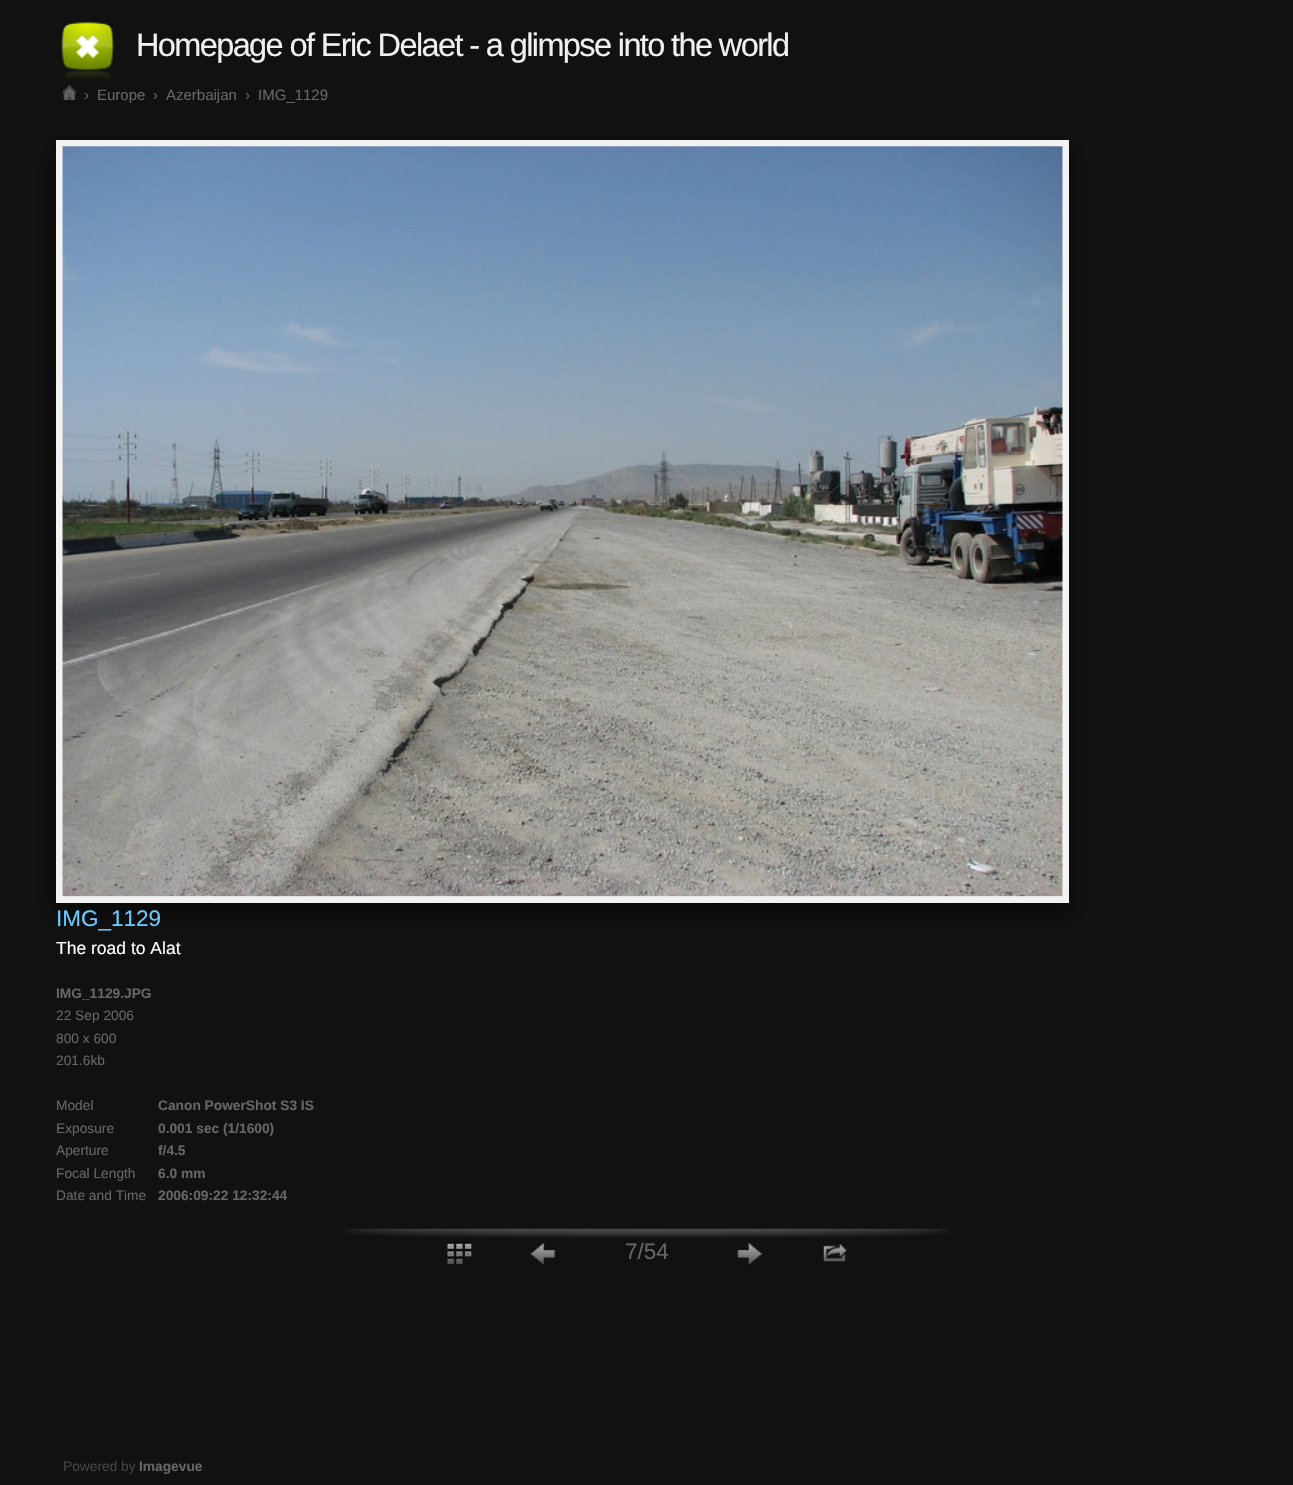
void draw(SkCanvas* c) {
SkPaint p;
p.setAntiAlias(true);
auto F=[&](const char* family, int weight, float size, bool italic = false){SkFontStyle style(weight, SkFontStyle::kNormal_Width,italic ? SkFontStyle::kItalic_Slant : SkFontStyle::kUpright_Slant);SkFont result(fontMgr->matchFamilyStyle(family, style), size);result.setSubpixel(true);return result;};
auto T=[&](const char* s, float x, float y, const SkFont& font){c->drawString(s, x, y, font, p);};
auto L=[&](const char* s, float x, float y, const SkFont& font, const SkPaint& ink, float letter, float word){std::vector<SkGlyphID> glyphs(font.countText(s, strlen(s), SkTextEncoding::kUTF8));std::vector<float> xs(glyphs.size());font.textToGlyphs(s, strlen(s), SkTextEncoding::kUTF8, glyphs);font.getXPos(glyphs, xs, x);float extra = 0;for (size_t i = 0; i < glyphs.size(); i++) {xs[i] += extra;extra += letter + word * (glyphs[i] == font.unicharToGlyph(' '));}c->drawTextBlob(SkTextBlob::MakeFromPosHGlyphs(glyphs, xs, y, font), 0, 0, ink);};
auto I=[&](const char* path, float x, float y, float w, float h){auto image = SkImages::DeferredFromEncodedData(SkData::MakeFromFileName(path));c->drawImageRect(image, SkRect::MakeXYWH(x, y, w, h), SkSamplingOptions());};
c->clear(0xff111111);
I("1.png",61,22,53,57);
auto f1 = F("Liberation Sans",400,32.5);
p.setColor(0xfff0f0f0);
L("Homepage of Eric Delaet - a glimpse into the world",136,56,f1,p,-1.62,0);
I("2.png",62,85,14,15);
auto f2 = F("Liberation Sans",400,15);
p.setColor(0xff666666);
T("›",84,100,f2);
T("Europe",97,100,f2);
T("›",153,100,f2);
T("Azerbaijan",166,100,f2);
T("›",245,100,f2);
T("IMG_1129",258,100,f2);
p.setColor(0x80000000);
p.setMaskFilter(SkMaskFilter::MakeBlur(kNormal_SkBlurStyle, 11));
c->drawRect(SkRect::MakeXYWH(56,151,1013,763),p);
p.setMaskFilter(nullptr);
p.setColor(0xffffffff);
c->drawRect(SkRect::MakeXYWH(59,143,1007,757),p);
p.setStroke(true);
p.setStrokeWidth(6);
p.setColor(0xfff2f2f2);
c->drawRect(SkRect::MakeXYWH(59,143,1007,757),p);
I("3.png",62,146,1001,751);
auto f3 = F("Liberation Sans",400,22.5);
p.setStroke(false);
p.setColor(0xff66ccff);
T("IMG_1129",56,926,f3);
auto f4 = F("Liberation Sans",400,17.5);
p.setColor(0xffffffff);
T("The road to Alat",56,954,f4);
auto f5 = F("Liberation Sans",700,13.75);
p.setColor(0xff666666);
T("IMG_1129.JPG",56,998,f5);
auto f6 = F("Liberation Sans",400,13.75);
T("22 Sep 2006",56,1020,f6);
T("800 x 600",56,1043,f6);
T("201.6kb",56,1065,f6);
T("Model",56,1110,f6);
T("Canon PowerShot S3 IS",158,1110,f5);
T("Exposure",56,1133,f6);
T("0.001 sec (1/1600)",158,1133,f5);
T("Aperture",56,1155,f6);
T("f/4.5",158,1155,f5);
T("Focal Length",56,1178,f6);
T("6.0 mm",158,1178,f5);
T("Date and Time",56,1200,f6);
T("2006:09:22 12:32:44",158,1200,f5);
I("4.png",344,1228,607,10);
I("5.png",447,1242,25,22);
I("6.png",530,1242,26,23);
T("7/54",625,1259,f3);
I("7.png",737,1242,26,23);
I("8.png",823,1243,24,19);
p.setColor(0xff444444);
T("Powered by",63,1471,f6);
p.setColor(0xff666666);
T("Imagevue",139,1471,f5);
}
